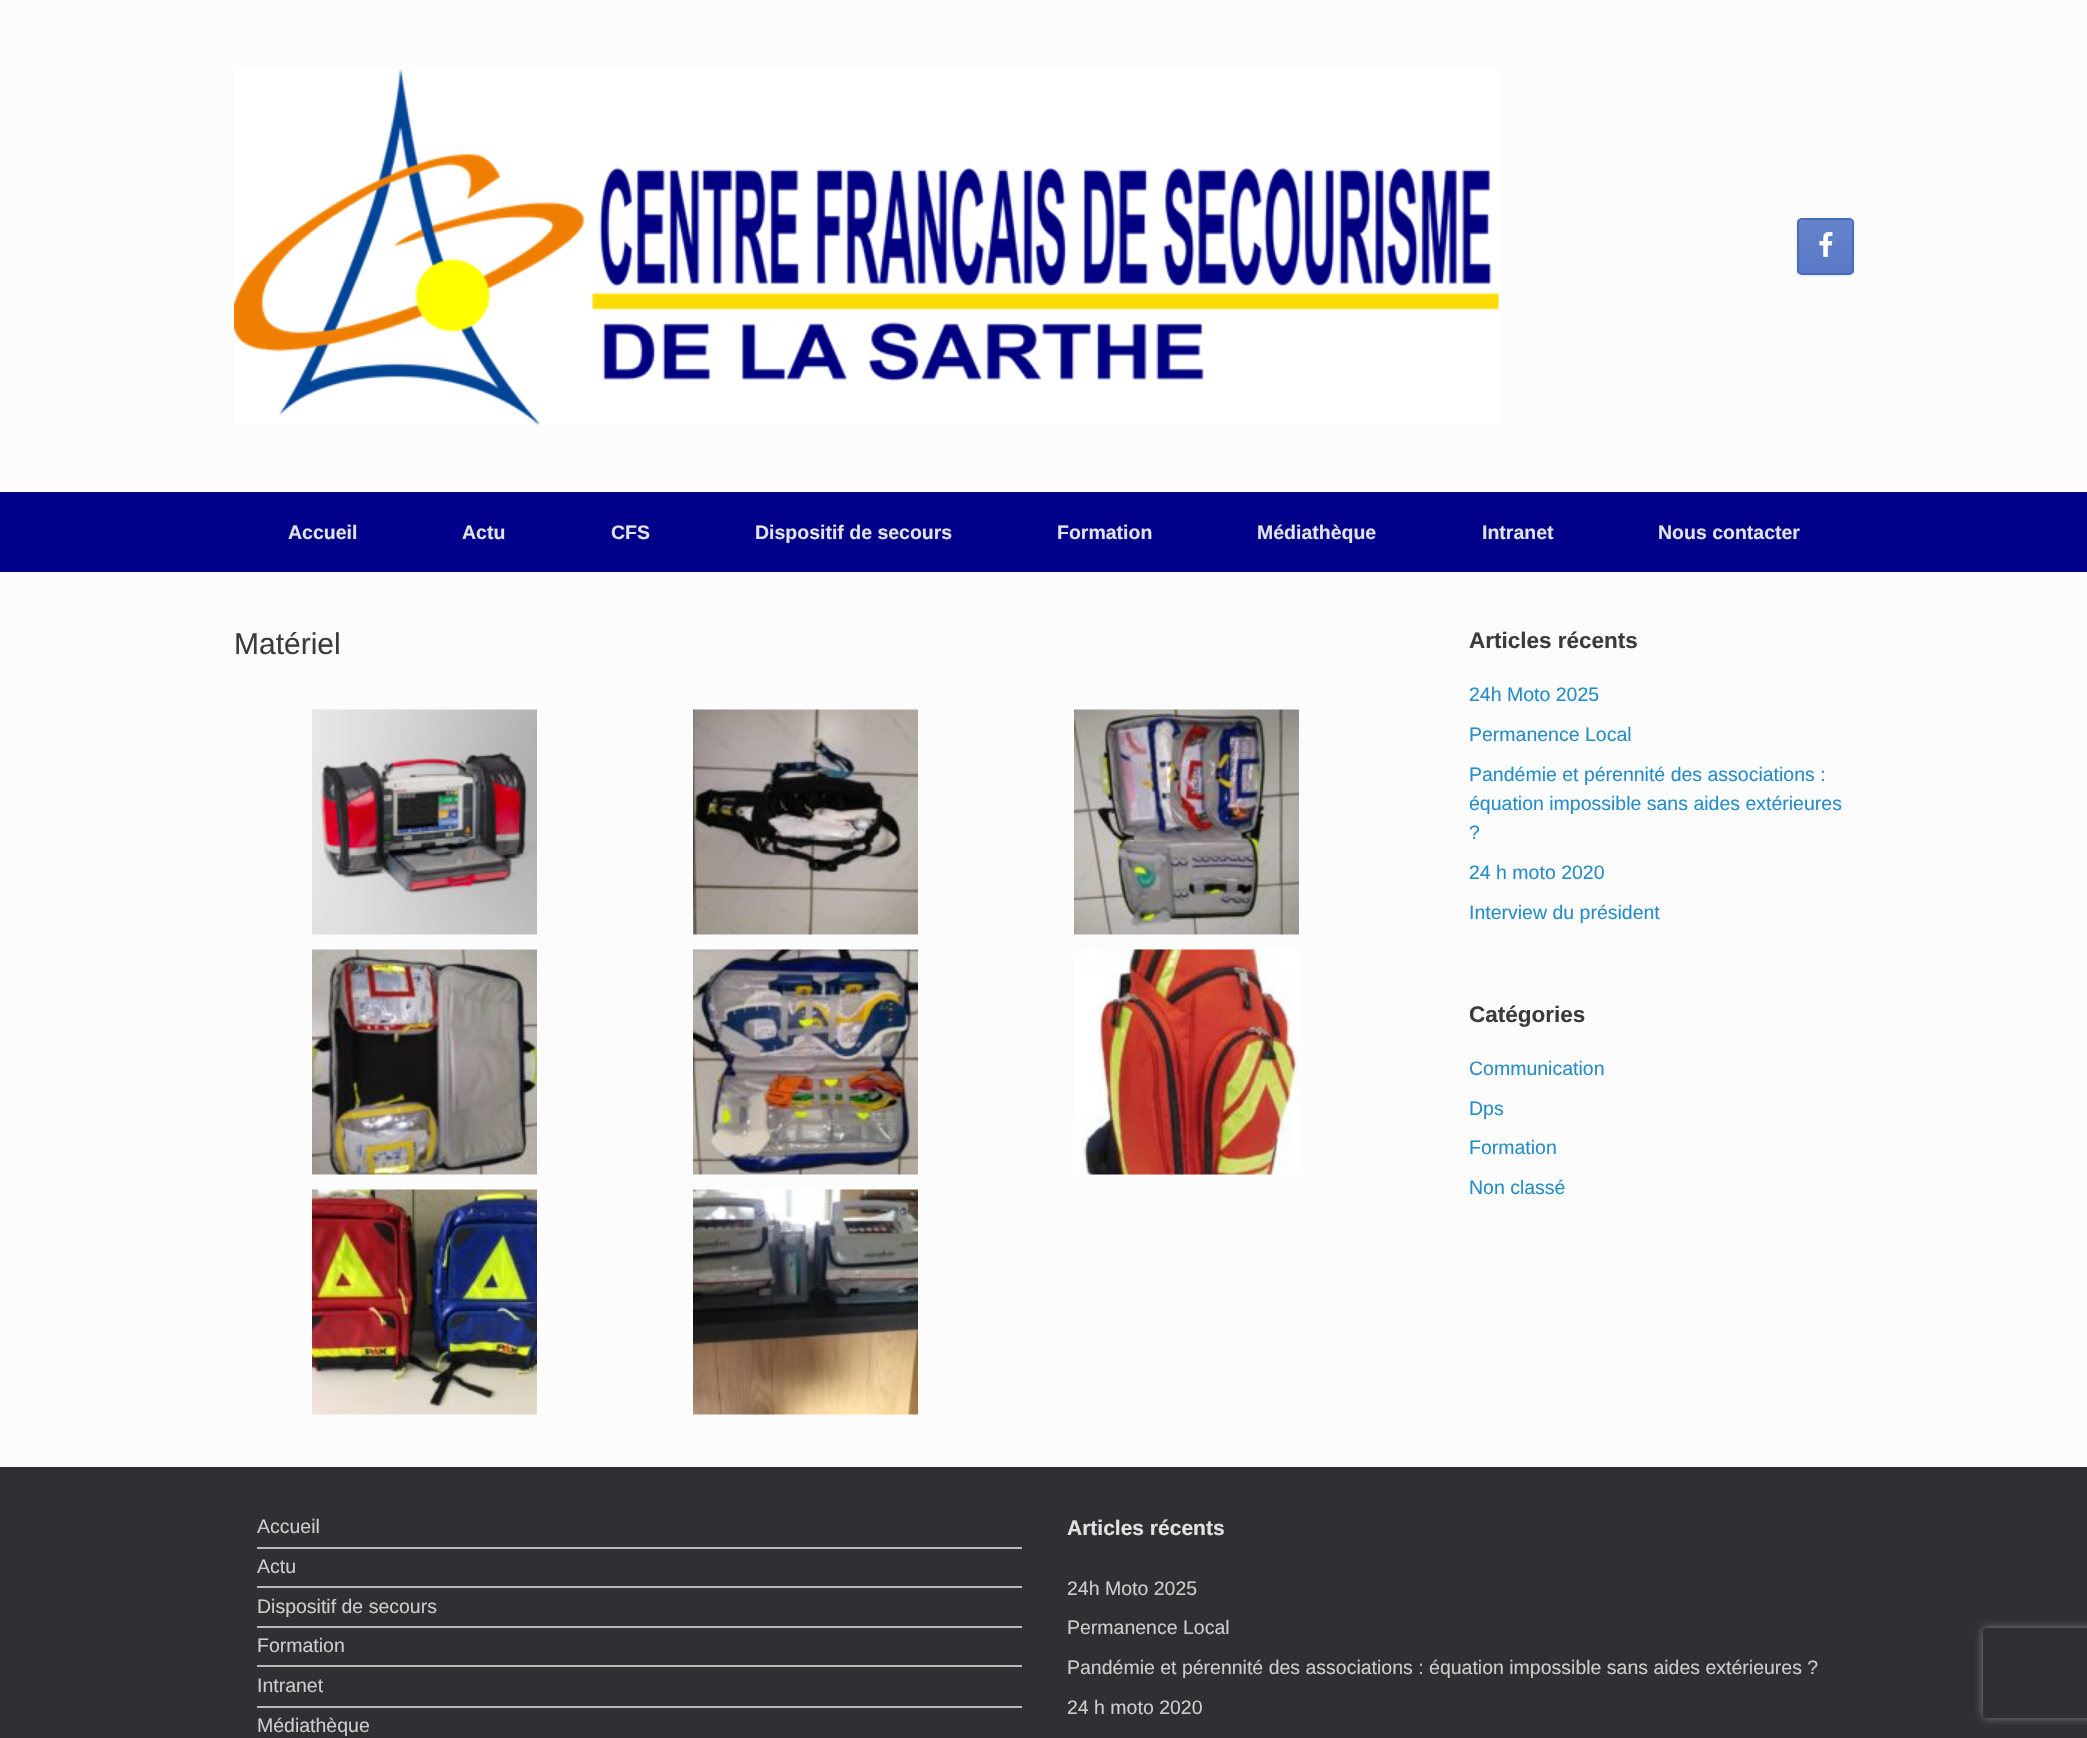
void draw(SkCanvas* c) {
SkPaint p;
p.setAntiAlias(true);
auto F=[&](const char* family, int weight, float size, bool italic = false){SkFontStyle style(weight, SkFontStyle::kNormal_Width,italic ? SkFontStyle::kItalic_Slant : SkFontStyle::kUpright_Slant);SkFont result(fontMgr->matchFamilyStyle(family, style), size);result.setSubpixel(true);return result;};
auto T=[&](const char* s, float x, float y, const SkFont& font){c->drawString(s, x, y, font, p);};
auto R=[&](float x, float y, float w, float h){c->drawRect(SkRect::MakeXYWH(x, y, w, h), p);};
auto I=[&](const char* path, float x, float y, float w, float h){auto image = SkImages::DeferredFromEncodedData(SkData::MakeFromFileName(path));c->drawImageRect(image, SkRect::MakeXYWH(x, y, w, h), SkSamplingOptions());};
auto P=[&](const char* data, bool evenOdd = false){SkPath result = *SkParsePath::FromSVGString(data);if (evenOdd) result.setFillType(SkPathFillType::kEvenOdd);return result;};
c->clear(0xff2f3033);
p.setColor(0xfffcfcfc);
R(0,0,2087,492);
I("1.png",234,69,1265,356);
p.setColor(0x1a000000);
p.setMaskFilter(SkMaskFilter::MakeBlur(kNormal_SkBlurStyle, 1));
c->drawRoundRect(SkRect::MakeXYWH(1797,219,57,57),5,5,p);
p.setMaskFilter(nullptr);
c->save();
c->clipPath(P("M1802 218h47c3 0 5 2 5 5v47c0 3-2 5-5 5h-47c-3 0-5-2-5-5v-47c0-3 2-5 5-5z"),true);
{
const SkColor colors[] = {0xff597ac7,0xff6483cb};
const float stops[] = {0,1};
const SkPoint ends[] = {{1826,273}, {1826,219}};
p.setShader(SkGradientShader::MakeLinear(ends, colors, stops, 2, SkTileMode::kClamp));
p.setAlpha(255);
}
R(1797,219,57,54);
c->restore();
p.setShader(nullptr);
p.setColor(0x33ffffff);
c->drawPath(P("M1802 220h48c3 2 2 18 2 20v32c1 0 1-1 1-2v-48c0-2-1-3-3-3h-48c-1 0-3 1-3 2z"),p);
p.setStroke(true);
p.setStrokeWidth(2);
p.setColor(0xff466bc1);
c->drawRoundRect(SkRect::MakeXYWH(1798,219,55,55),4,4,p);
I("2.png",1819,231,14,26);
p.setStroke(false);
p.setColor(0xff00008b);
R(0,492,2087,80);
auto f1 = F("Liberation Sans",700,19.5);
p.setColor(0xffe2e2e2);
T("Accueil",288,539,f1);
T("Actu",462,539,f1);
T("CFS",611,539,f1);
T("Dispositif de secours",755,539,f1);
T("Formation",1057,539,f1);
T("Médiathèque",1257,539,f1);
T("Intranet",1482,539,f1);
T("Nous contacter",1658,539,f1);
p.setColor(0xfffcfcfc);
R(0,572,2087,895);
auto f2 = F("Liberation Sans",400,30);
p.setColor(0xff3b3b3b);
T("Matériel",234,654,f2);
I("3.png",312,709,225,226);
I("4.png",693,709,225,226);
I("5.png",1074,709,225,226);
I("6.png",312,949,225,226);
I("7.png",693,949,225,226);
I("8.png",1074,949,225,226);
I("9.png",312,1189,225,226);
I("10.png",693,1189,225,226);
auto f3 = F("Liberation Sans",700,22.5);
T("Articles récents",1469,648,f3);
auto f4 = F("Liberation Sans",400,19.5);
p.setColor(0xff248cc8);
T("24h Moto 2025",1469,701,f4);
T("Permanence Local",1469,741,f4);
T("Pandémie et pérennité des associations :",1469,781,f4);
T("équation impossible sans aides extérieures",1469,810,f4);
T("?",1469,839,f4);
T("24 h moto 2020",1469,879,f4);
T("Interview du président",1469,919,f4);
p.setColor(0xff3b3b3b);
T("Catégories",1469,1022,f3);
p.setColor(0xff248cc8);
T("Communication",1469,1075,f4);
T("Dps",1469,1115,f4);
T("Formation",1469,1154,f4);
T("Non classé",1469,1194,f4);
p.setColor(0xffb9b9b9);
R(257,1547,765,2);
p.setColor(0xffcccccc);
T("Accueil",257,1533,f4);
p.setColor(0xffb9b9b9);
R(257,1586,765,2);
p.setColor(0xffcccccc);
T("Actu",257,1573,f4);
p.setColor(0xffb9b9b9);
R(257,1626,765,2);
p.setColor(0xffcccccc);
T("Dispositif de secours",257,1613,f4);
p.setColor(0xffb9b9b9);
R(257,1665,765,2);
p.setColor(0xffcccccc);
T("Formation",257,1652,f4);
p.setColor(0xffb9b9b9);
R(257,1706,765,2);
p.setColor(0xffcccccc);
T("Intranet",257,1692,f4);
T("Médiathèque",257,1732,f4);
auto f5 = F("Liberation Sans",700,21);
p.setColor(0xffe2e2e2);
T("Articles récents",1067,1535,f5);
p.setColor(0xffcccccc);
T("24h Moto 2025",1067,1595,f4);
T("Permanence Local",1067,1634,f4);
T("Pandémie et pérennité des associations : équation impossible sans aides extérieures ?",1067,1674,f4);
T("24 h moto 2020",1067,1714,f4);
c->save();
c->clipPath(P("M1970 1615h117v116h-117zm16 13h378c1.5 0 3 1.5 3 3v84c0 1.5-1.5 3-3 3h-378c-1.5 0-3-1.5-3-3v-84c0-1.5 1.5-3 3-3z",true),true);
p.setColor(0xff808080);
p.setMaskFilter(SkMaskFilter::MakeBlur(kNormal_SkBlurStyle, 4));
c->drawRoundRect(SkRect::MakeXYWH(1983,1628,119,90),3,3,p);
p.setMaskFilter(nullptr);
c->restore();
}
